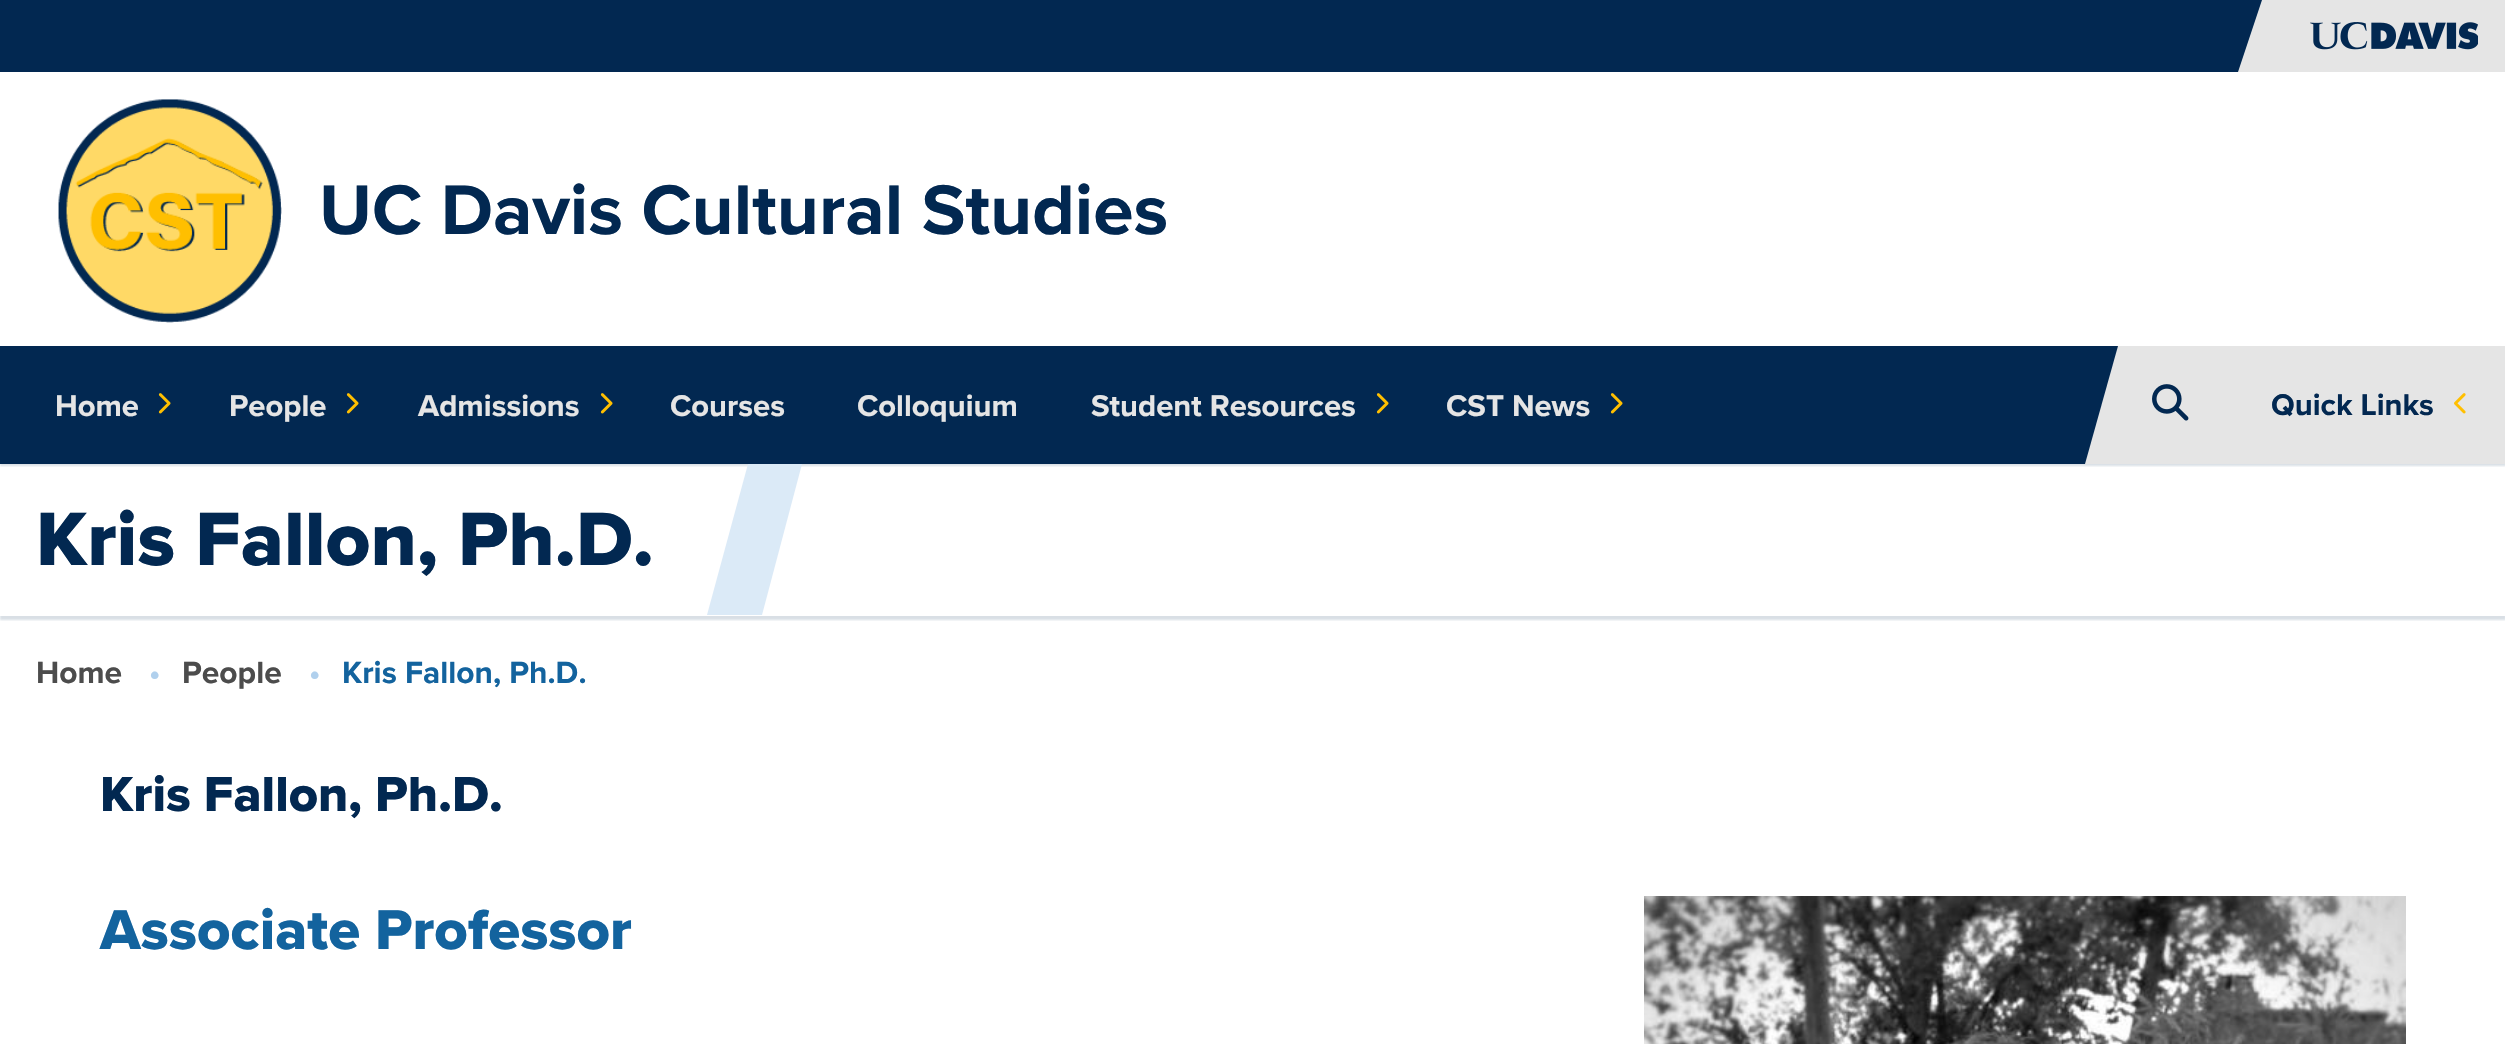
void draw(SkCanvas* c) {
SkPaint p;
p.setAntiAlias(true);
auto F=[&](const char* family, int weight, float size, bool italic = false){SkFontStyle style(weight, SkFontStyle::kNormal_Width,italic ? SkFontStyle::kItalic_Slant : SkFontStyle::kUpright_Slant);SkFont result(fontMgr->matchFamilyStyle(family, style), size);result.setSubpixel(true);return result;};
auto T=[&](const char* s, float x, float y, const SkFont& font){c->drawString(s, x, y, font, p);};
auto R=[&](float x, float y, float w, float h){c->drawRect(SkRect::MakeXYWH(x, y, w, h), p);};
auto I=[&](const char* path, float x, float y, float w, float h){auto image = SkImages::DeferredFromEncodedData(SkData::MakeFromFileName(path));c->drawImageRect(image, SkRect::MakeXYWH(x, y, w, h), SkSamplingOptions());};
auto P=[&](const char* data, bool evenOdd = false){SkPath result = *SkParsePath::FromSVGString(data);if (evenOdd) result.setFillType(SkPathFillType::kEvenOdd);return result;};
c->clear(0xffffffff);
c->save();
c->clipRect(SkRect::MakeXYWH(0,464,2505,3));
p.setColor(0x26022851);
p.setMaskFilter(SkMaskFilter::MakeBlur(kNormal_SkBlurStyle, 1));
c->drawRect(SkRect::MakeXYWH(0,2,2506,464),p);
p.setMaskFilter(nullptr);
c->restore();
p.setColor(0xff022851);
R(0,0,2262,72);
p.setColor(0xffe5e5e5);
R(2264,0,241,72);
c->drawPath(P("M2262 0l-24 72h26v-72z"),p);
I("1.png",2310,22,168,28);
I("2.png",58,99,224,224);
auto f1 = F("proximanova",700,72.8);
p.setColor(0xff022851);
T("UC Davis Cultural Studies",319,234,f1);
R(0,346,2118,118);
auto f2 = F("proximanova",700,31);
p.setColor(0xffe5e5e5);
T("Home",55,416,f2);
I("3.png",158,393,13,21);
T("People",229,416,f2);
I("3.png",346,393,13,21);
T("Admissions",418,416,f2);
I("3.png",600,393,13,21);
T("Courses",670,416,f2);
T("Colloquium",857,416,f2);
T("Student Resources",1091,416,f2);
I("3.png",1376,393,13,21);
T("CST News",1446,416,f2);
I("3.png",1610,393,13,21);
c->drawPath(P("M2217 464l33-118h2v118z"),p);
R(2120,346,100,118);
c->drawPath(P("M2085 464l33-118h2v118z"),p);
I("4.png",2152,384,37,37);
R(2252,346,253,118);
c->drawPath(P("M2220 346h35l-32 118h-3z"),p);
p.setColor(0xff022851);
T("Quick Links",2271,415,f2);
I("5.png",2454,393,12,21);
c->save();
c->clipRect(SkRect::MakeXYWH(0,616,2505,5));
p.setColor(0x26022851);
p.setMaskFilter(SkMaskFilter::MakeBlur(kNormal_SkBlurStyle, 1));
c->drawRect(SkRect::MakeXYWH(0,468,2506,152),p);
p.setMaskFilter(nullptr);
c->restore();
auto f3 = F("Proxima Nova",800,78.25);
p.setColor(0xff022851);
T("Kris Fallon, Ph.D.",36,565,f3);
p.setColor(0xffdbeaf7);
c->drawPath(P("M748 464h54l-40 151h-55z"),p);
auto f4 = F("proximanova",700,31.75);
p.setColor(0xff4c4c4c);
T("Home",36,683,f4);
p.setColor(0xffb0d0ed);
T("•",149,683,f4);
p.setColor(0xff4c4c4c);
T("People",182,683,f4);
p.setColor(0xffb0d0ed);
T("•",309,683,f4);
p.setColor(0xff13639e);
T("Kris Fallon, Ph.D.",342,683,f4);
auto f5 = F("Proxima Nova",800,51);
p.setColor(0xff022851);
T("Kris Fallon, Ph.D.",100,811,f5);
auto f6 = F("Proxima Nova",800,58.25);
p.setColor(0xff13639e);
T("Associate Professor",100,949,f6);
I("6.png",1644,896,762,148);
}
